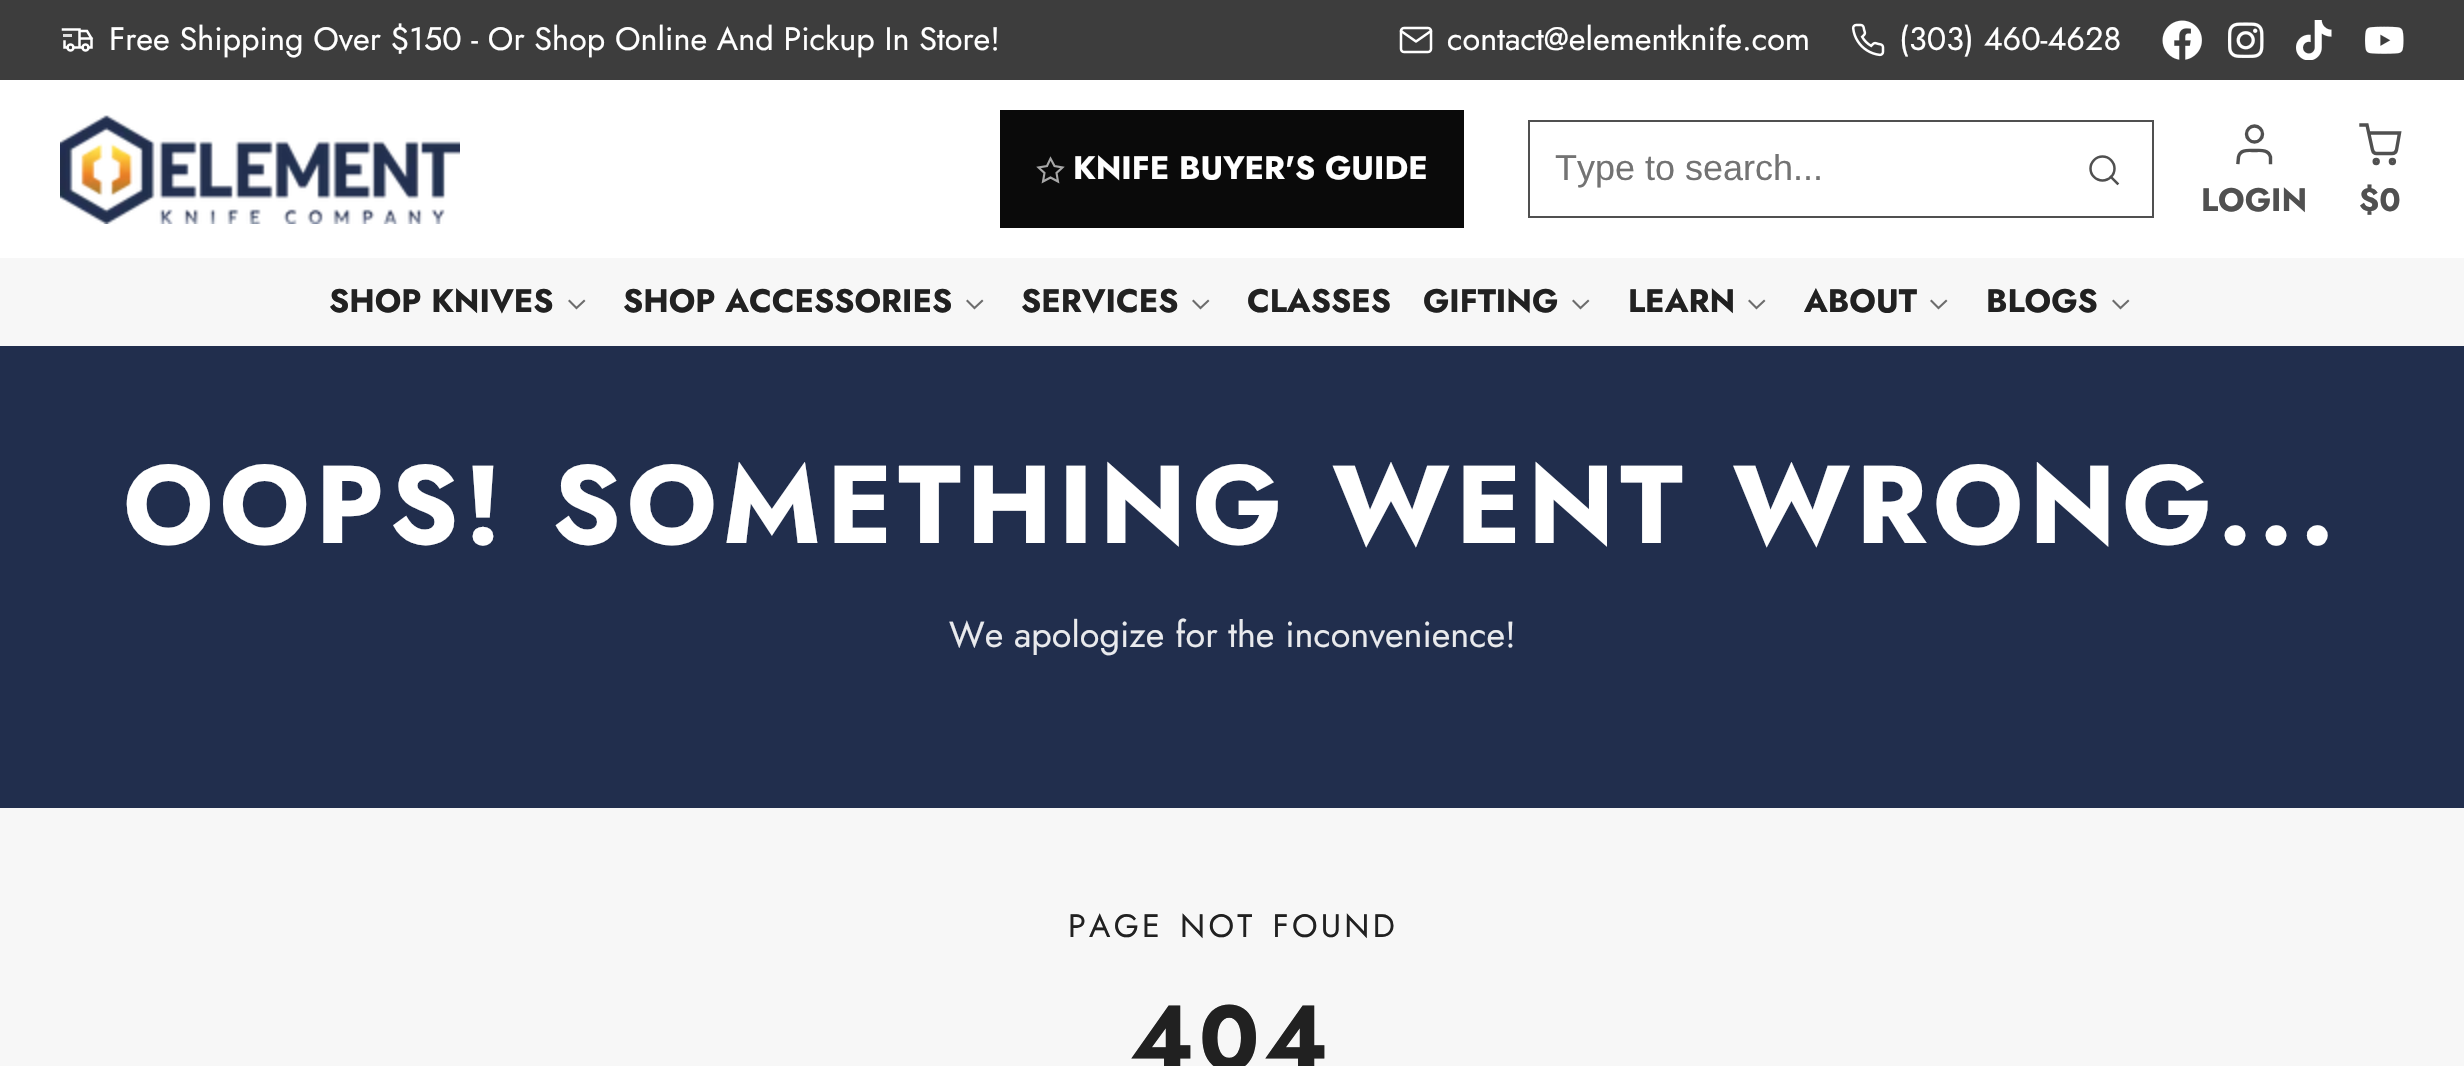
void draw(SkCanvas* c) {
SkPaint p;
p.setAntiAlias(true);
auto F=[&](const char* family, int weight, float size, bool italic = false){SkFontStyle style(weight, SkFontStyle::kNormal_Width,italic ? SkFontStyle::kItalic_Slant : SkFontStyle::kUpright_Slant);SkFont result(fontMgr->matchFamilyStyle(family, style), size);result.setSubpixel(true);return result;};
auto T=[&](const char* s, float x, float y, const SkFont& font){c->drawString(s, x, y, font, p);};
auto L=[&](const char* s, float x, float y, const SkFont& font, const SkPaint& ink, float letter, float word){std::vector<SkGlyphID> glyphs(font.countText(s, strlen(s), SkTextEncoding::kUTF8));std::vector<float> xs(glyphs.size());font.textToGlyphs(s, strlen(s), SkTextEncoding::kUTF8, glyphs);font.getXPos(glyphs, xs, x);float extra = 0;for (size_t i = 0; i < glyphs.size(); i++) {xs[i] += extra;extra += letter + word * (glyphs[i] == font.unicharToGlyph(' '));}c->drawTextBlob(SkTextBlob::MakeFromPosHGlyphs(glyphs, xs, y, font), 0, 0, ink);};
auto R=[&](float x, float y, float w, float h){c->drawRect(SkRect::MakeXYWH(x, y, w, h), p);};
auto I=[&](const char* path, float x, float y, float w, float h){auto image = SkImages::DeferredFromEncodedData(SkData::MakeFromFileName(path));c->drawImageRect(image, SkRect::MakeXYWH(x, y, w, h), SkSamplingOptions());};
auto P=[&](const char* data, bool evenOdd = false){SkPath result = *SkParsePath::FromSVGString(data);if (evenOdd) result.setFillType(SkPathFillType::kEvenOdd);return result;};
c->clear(0xfff7f7f7);
p.setColor(0xff3d3d3d);
R(0,0,2464,80);
I("1.png",61,28,33,24);
auto f1 = F("Jost",400,32.4);
p.setColor(0xffffffff);
T("Free Shipping Over $150 - Or Shop Online And Pickup In Store!",109,50,f1);
I("2.png",1399,26,34,28);
T("contact@elementknife.com",1447,50,f1);
I("3.png",1851,23,34,34);
T("(303) 460-4628",1899,50,f1);
I("4.png",2162,20,40,40);
I("5.png",2228,22,36,36);
I("6.png",2296,20,36,40);
I("7.png",2365,26,39,28);
R(0,80,2464,178);
I("8.png",60,115,400,109);
p.setColor(0xff0a0a0a);
R(1000,110,464,118);
p.setStroke(true);
p.setStrokeWidth(2.1);
p.setStrokeCap(SkPaint::kSquare_Cap);
p.setColor(0xffa7a7a7);
c->drawPath(P("M1050.5 158.5l4 7.5l8 1.5l-6 5.5l1.5 8.5l-7.5-4l-7.5 4l1.5-8.5l-6-5.5l8.5-1.5z"),p);
auto f2 = F("Jost",700,32.4);
p.setStroke(false);
p.setColor(0xffffffff);
T("KNIFE BUYER'S GUIDE",1073,179,f2);
p.setStroke(true);
p.setStrokeWidth(2);
p.setStrokeCap(SkPaint::kButt_Cap);
p.setColor(0xff505050);
c->drawRect(SkRect::MakeXYWH(1529,121,624,96),p);
auto f3 = F("Liberation Sans",400,36);
p.setStroke(false);
p.setColor(0xff737373);
T("Type to search...",1555,180,f3);
p.setStroke(true);
p.setStrokeWidth(2.5);
p.setColor(0xff505050);
c->drawCircle(2102.5,168.5,12,p);
p.setStrokeCap(SkPaint::kSquare_Cap);
c->drawPath(P("M2117.5 183.5l-6.5-6.5"),p);
p.setStrokeWidth(3.4);
c->drawPath(P("M2270.5 162.5v-5.5c-2-8-10.5-6.5-16-6.5c-6 0-14.5-1.5-16 6.5l-.5 5.5"),p);
p.setStrokeCap(SkPaint::kButt_Cap);
c->drawCircle(2254.5,134,8,p);
p.setStroke(false);
T("LOGIN",2201,211,f2);
p.setStroke(true);
c->drawCircle(2376.2,161.5,2,p);
c->drawCircle(2392.4,161.5,2,p);
p.setStrokeCap(SkPaint::kSquare_Cap);
c->drawPath(P("M2361 125h6l5.5 25c.5 2 2 3.5 4 3.5h15.5c2 0 4-1.5 4.5-3.5l3-17h-29"),p);
p.setStroke(false);
T("$0",2359,211,f2);
p.setColor(0xff212121);
T("SHOP KNIVES",329,312,f2);
p.setStroke(true);
p.setStrokeWidth(2.1);
p.setColor(0xff6d6d6d);
c->drawPath(P("M569.5 301l7 7l7.5-7"),p);
p.setStroke(false);
p.setColor(0xff212121);
T("SHOP ACCESSORIES",623,312,f2);
p.setStroke(true);
p.setColor(0xff6d6d6d);
c->drawPath(P("M967.5 301l7 7l7.5-7"),p);
p.setStroke(false);
p.setColor(0xff212121);
T("SERVICES",1021,312,f2);
p.setStroke(true);
p.setColor(0xff6d6d6d);
c->drawPath(P("M1193.5 301l7 7l7.5-7"),p);
p.setStroke(false);
p.setColor(0xff212121);
T("CLASSES",1247,312,f2);
T("GIFTING",1423,312,f2);
p.setStroke(true);
p.setColor(0xff6d6d6d);
c->drawPath(P("M1573.5 301l7 7l7.5-7"),p);
p.setStroke(false);
p.setColor(0xff212121);
T("LEARN",1628,312,f2);
p.setStroke(true);
p.setColor(0xff6d6d6d);
c->drawPath(P("M1749.5 301l7 7l7.5-7"),p);
p.setStroke(false);
p.setColor(0xff212121);
T("ABOUT",1804,312,f2);
p.setStroke(true);
p.setColor(0xff6d6d6d);
c->drawPath(P("M1931.5 301l7 7l7.5-7"),p);
p.setStroke(false);
p.setColor(0xff212121);
T("BLOGS",1986,312,f2);
p.setStroke(true);
p.setColor(0xff6d6d6d);
c->drawPath(P("M2113.5 301l7 7l7.5-7"),p);
p.setStroke(false);
p.setColor(0xff212e4d);
R(0,346,2464,462);
auto f4 = F("Jost",700,110.4);
p.setColor(0xffffffff);
L("OOPS! SOMETHING WENT WRONG...",123,543,f4,p,5.5,6);
auto f5 = F("Jost",400,36);
p.setColor(0xffe9eaed);
T("We apologize for the inconvenience!",949,647,f5);
p.setColor(0xff212121);
L("PAGE NOT FOUND",1068,937,f1,p,3.25,4);
auto f6 = F("Jost",700,92);
L("404",1130,1070,f6,p,4.5,0);
}
